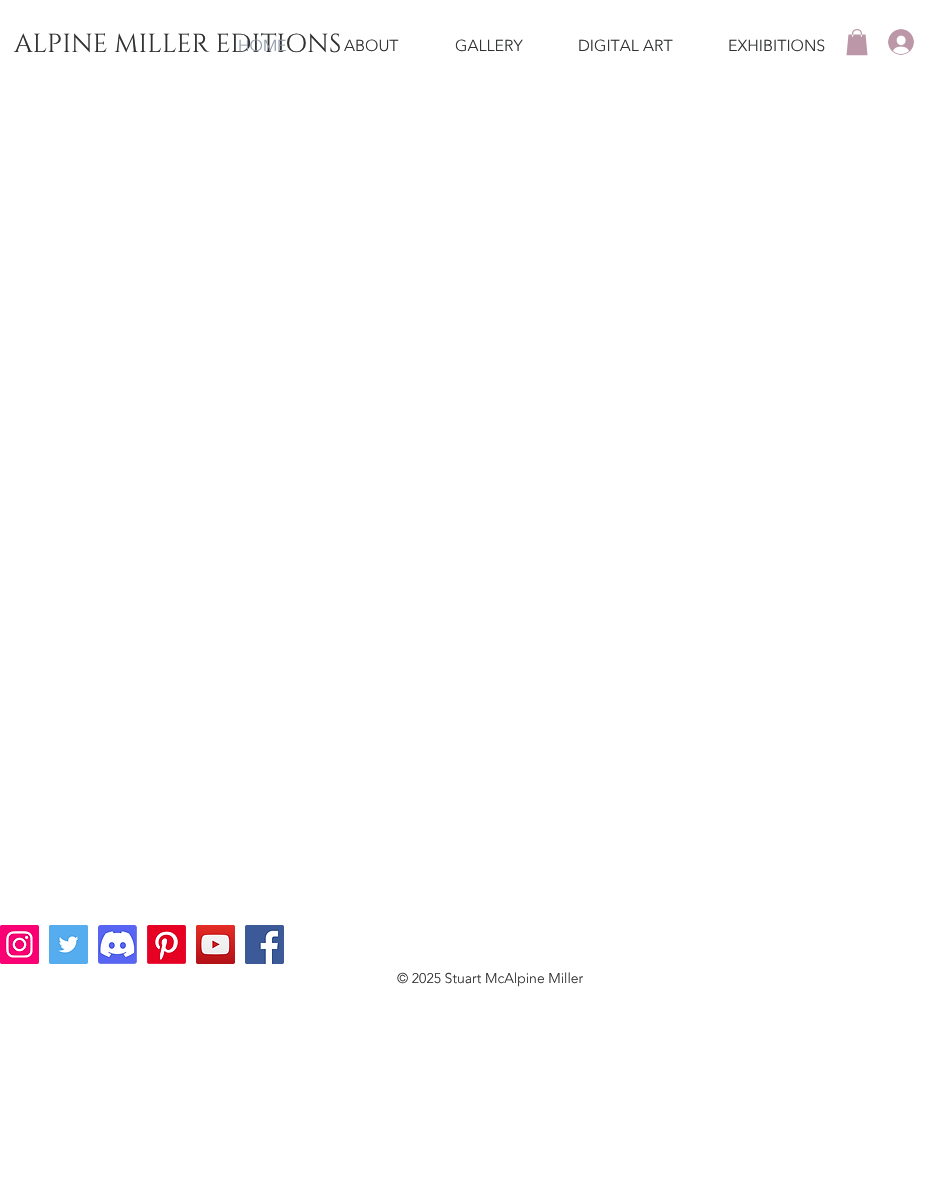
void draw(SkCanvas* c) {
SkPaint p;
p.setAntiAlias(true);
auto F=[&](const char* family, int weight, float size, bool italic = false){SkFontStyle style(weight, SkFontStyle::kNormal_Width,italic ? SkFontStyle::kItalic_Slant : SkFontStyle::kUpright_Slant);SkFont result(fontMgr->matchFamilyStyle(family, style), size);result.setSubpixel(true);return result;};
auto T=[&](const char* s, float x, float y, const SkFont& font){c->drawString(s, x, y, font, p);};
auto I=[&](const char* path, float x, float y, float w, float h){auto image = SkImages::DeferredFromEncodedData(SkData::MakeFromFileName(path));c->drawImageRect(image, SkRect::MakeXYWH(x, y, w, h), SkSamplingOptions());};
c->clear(0xffffffff);
auto f1 = F("Cinzel",400,26);
p.setColor(0xff303131);
T("ALPINE MILLER EDITIONS",14,52,f1);
auto f2 = F("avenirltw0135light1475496",300,16);
p.setColor(0xff8b98a7);
T("HOME",238,51,f2);
p.setColor(0xff303131);
T("ABOUT",344,51,f2);
T("GALLERY",455,51,f2);
T("DIGITAL ART",578,51,f2);
T("EXHIBITIONS",728,51,f2);
I("1.png",846,29,22,27);
I("2.png",888,29,26,26);
I("3.png",0,925,39,39);
I("4.png",49,925,39,39);
I("5.png",98,925,39,39);
I("6.png",147,925,39,39);
I("7.png",196,925,39,39);
I("8.png",245,925,39,39);
auto f3 = F("avenirltw0135light1475496",300,14);
T("© 2025 Stuart McAlpine Miller",397,983,f3);
}
